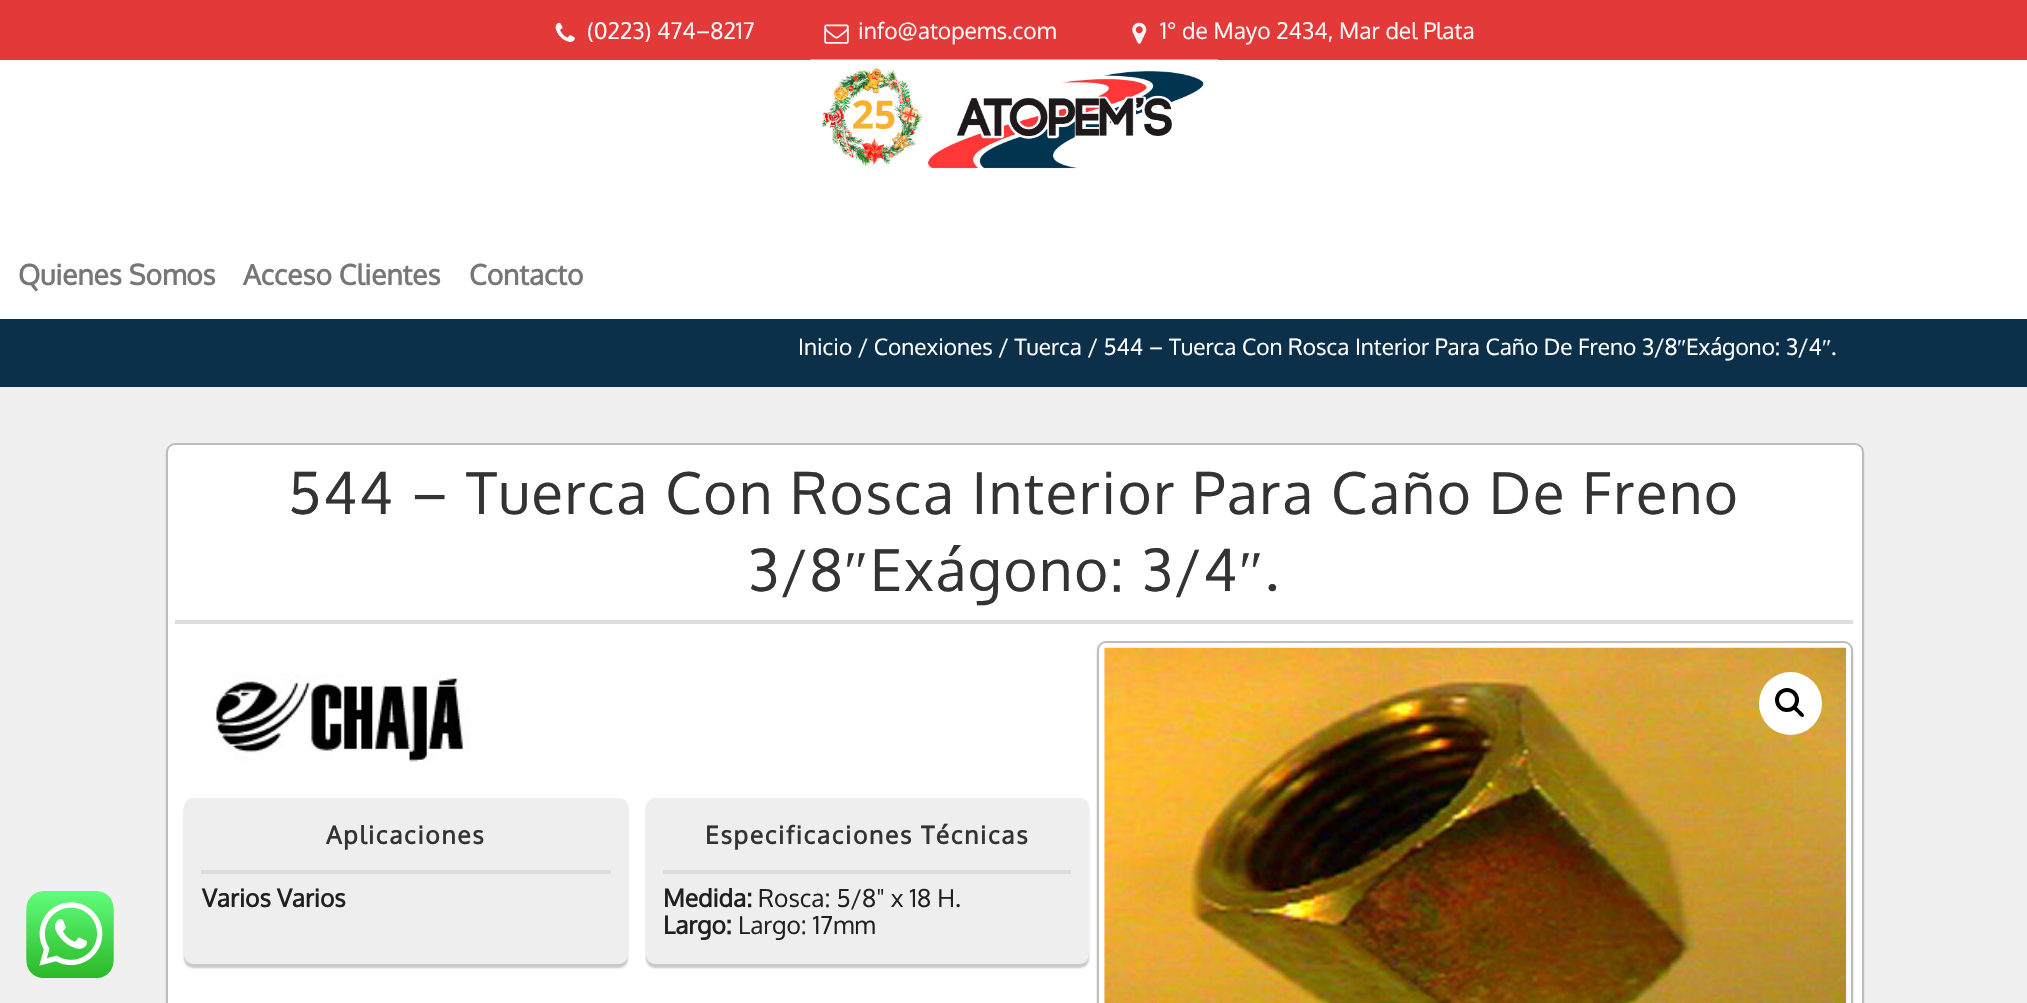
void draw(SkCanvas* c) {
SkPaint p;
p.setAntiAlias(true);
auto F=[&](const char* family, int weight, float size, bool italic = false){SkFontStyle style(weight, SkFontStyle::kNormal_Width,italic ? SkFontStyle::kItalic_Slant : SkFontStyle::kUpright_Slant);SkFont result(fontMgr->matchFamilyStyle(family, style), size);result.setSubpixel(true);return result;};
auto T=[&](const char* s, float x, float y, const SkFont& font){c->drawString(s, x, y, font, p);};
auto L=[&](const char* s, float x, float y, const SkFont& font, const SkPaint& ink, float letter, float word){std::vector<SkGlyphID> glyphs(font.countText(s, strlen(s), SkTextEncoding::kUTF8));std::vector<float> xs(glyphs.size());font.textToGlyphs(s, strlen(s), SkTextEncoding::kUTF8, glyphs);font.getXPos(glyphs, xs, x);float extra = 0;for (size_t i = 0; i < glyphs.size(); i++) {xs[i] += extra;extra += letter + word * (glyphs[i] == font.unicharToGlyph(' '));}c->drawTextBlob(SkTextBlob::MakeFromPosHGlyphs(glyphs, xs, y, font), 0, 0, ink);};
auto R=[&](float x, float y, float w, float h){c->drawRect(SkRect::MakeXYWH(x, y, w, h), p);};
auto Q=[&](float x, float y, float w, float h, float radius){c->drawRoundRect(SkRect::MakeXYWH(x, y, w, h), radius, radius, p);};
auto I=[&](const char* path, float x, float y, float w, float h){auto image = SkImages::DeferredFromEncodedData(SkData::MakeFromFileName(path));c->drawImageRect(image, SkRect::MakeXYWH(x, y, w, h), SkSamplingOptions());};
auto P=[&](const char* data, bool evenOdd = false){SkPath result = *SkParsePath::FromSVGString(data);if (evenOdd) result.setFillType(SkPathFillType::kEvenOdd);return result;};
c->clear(0xfff0f0f0);
p.setColor(0xffe33a39);
R(0,0,2027,60);
I("1.png",555,22,20,20);
auto f1 = F("Oxygen",400,22.75);
p.setColor(0xfff7f7f7);
T("(0223) 474–8217",587,39,f1);
I("2.png",824,24,25,20);
T("info@atopems.com",858,39,f1);
I("3.png",1132,22,15,22);
T("1° de Mayo 2434, Mar del Plata",1160,39,f1);
p.setColor(0xffffffff);
R(0,60,2027,259);
I("4.png",810,59,408,110);
auto f2 = F("Oxygen",700,28);
p.setColor(0xff777777);
T("Quienes Somos",18,285,f2);
T("Acceso Clientes",243,285,f2);
T("Contacto",469,285,f2);
p.setColor(0xff0c3049);
R(0,319,2027,68);
auto f3 = F("Oxygen",400,22.55);
p.setColor(0xffffffff);
T("Inicio / Conexiones / Tuerca / 544 – Tuerca Con Rosca Interior Para Caño De Freno 3/8",798,355,f3);
auto f4 = F("Liberation Serif",400,22.55);
T("″",1677,355,f4);
T("Exágono: 3/4",1686,355,f3);
T("″",1822,355,f4);
T(".",1831,355,f3);
p.setColor(0xffc9c9c9);
p.setMaskFilter(SkMaskFilter::MakeBlur(kNormal_SkBlurStyle, 1));
c->drawRoundRect(SkRect::MakeXYWH(166,446,1698,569),9,9,p);
p.setMaskFilter(nullptr);
p.setColor(0xffffffff);
c->drawRoundRect(SkRect::MakeXYWH(167,444,1696,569),8,8,p);
p.setStroke(true);
p.setStrokeWidth(2);
p.setColor(0xffbdbdbd);
c->drawRoundRect(SkRect::MakeXYWH(167,444,1696,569),8,8,p);
auto f5 = F("Oxygen",400,57.75);
p.setStroke(false);
p.setColor(0xff333333);
L("544 – Tuerca Con Rosca Interior Para Caño De Freno",288,514,f5,p,1.75,0);
L("3/8",748,591,f5,p,1.75,0);
auto f6 = F("Liberation Serif",400,57.75);
L("″",844,591,f6,p,1.75,0);
L("Exágono: 3/4",870,591,f5,p,1.75,0);
L("″",1239,591,f6,p,1.75,0);
L(".",1265,591,f5,p,1.75,0);
p.setColor(0xffdddddd);
R(175,620,1678,4);
I("5.png",212,674,258,88);
p.setColor(0xffc9c9c9);
p.setMaskFilter(SkMaskFilter::MakeBlur(kNormal_SkBlurStyle, 1));
c->drawRoundRect(SkRect::MakeXYWH(184,802,444,166),9,9,p);
p.setMaskFilter(nullptr);
p.setColor(0xffeeeeee);
Q(184,798,444,166,9);
auto f7 = F("Oxygen",700,24.5);
p.setColor(0xff333333);
L("Aplicaciones",326,844,f7,p,1.75,0);
p.setColor(0xffdddddd);
R(201,870,410,4);
p.setColor(0xff202020);
T("Varios Varios",202,907,f7);
p.setColor(0xffc9c9c9);
p.setMaskFilter(SkMaskFilter::MakeBlur(kNormal_SkBlurStyle, 1));
c->drawRoundRect(SkRect::MakeXYWH(646,802,443,166),9,9,p);
p.setMaskFilter(nullptr);
p.setColor(0xffeeeeee);
Q(646,798,443,166,9);
p.setColor(0xff333333);
L("Especificaciones Técnicas",705,844,f7,p,1.75,0);
p.setColor(0xffdddddd);
R(663,870,408,4);
p.setColor(0xff202020);
T("Medida:",663,907,f7);
auto f8 = F("Oxygen",400,24.5);
T("Rosca: 5/8\" x 18 H.",758,907,f8);
T("Largo:",663,934,f7);
T("Largo: 17mm",738,934,f8);
p.setColor(0xffc9c9c9);
p.setMaskFilter(SkMaskFilter::MakeBlur(kNormal_SkBlurStyle, 1));
c->drawRoundRect(SkRect::MakeXYWH(1097,644,756,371),9,9,p);
p.setMaskFilter(nullptr);
p.setColor(0xffffffff);
c->drawRoundRect(SkRect::MakeXYWH(1098,642,754,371),8,8,p);
p.setStroke(true);
p.setColor(0xffbdbdbd);
c->drawRoundRect(SkRect::MakeXYWH(1098,642,754,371),8,8,p);
I("6.png",1104,647,743,356);
p.setStroke(false);
p.setColor(0xffffffff);
c->drawCircle(1790.5,703.5,31.5,p);
p.setStroke(true);
p.setStrokeWidth(4);
p.setColor(0xff000000);
c->drawCircle(1787,700,10,p);
p.setStroke(false);
c->drawPath(P("M1793.5 706.5c2-2 5 2.5 6 3.5c1.5 1.5 6 4.5 4 6.5c-2 2-5-2.5-6.5-4c-1-1-5.5-4-3.5-6z"),p);
I("7.png",26,891,88,87);
}
